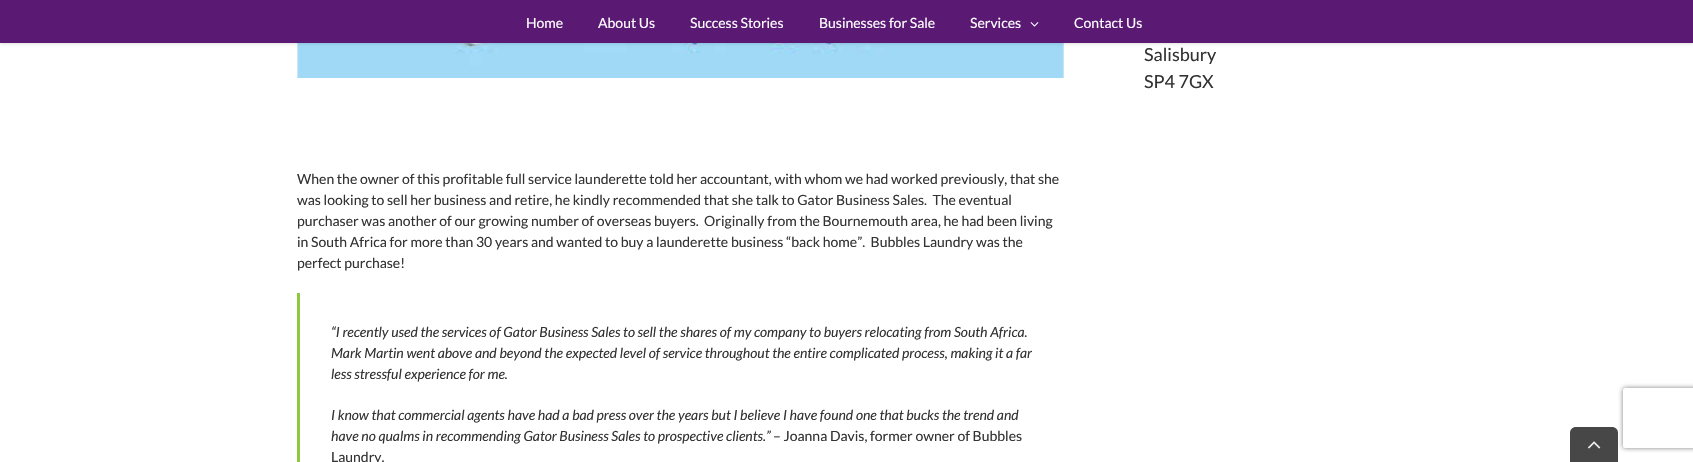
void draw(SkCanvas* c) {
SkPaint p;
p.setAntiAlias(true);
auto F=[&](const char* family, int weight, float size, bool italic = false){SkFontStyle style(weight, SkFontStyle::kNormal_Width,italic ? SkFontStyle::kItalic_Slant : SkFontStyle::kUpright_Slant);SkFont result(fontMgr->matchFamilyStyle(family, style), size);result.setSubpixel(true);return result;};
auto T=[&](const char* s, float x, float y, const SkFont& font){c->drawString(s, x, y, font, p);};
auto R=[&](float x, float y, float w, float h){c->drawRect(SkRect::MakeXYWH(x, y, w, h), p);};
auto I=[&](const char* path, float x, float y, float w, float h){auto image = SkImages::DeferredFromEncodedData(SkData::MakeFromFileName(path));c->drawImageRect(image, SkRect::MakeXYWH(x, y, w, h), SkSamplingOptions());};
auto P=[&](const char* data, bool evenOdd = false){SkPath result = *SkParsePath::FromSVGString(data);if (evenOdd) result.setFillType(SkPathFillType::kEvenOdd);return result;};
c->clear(0xffffffff);
I("2.png",297,43,767,35);
p.setColor(0x1f000000);
p.setMaskFilter(SkMaskFilter::MakeBlur(kNormal_SkBlurStyle, 1.5));
c->drawRect(SkRect::MakeXYWH(0,1,1693,43),p);
p.setMaskFilter(nullptr);
p.setColor(0xff5a1a74);
R(0,0,1693,43);
auto f1 = F("Lato",400,14);
p.setColor(0xffffffff);
T("Home",526,28,f1);
T("About Us",598,28,f1);
T("Success Stories",690,28,f1);
T("Businesses for Sale",819,28,f1);
T("Services",970,28,f1);
I("1.png",1030,22,9,5);
T("Contact Us",1074,28,f1);
auto f2 = F("Lato",400,18);
p.setColor(0xff333333);
T("Salisbury",1144,61,f2);
T("SP4 7GX",1144,88,f2);
T("When the owner of this profitable full service launderette told her accountant, with whom we had worked previously, that she",297,184,f1);
T("was looking to sell her business and retire, he kindly recommended that she talk to Gator Business Sales.  The eventual",297,205,f1);
T("purchaser was another of our growing number of overseas buyers.  Originally from the Bournemouth area, he had been living",297,226,f1);
T("in South Africa for more than 30 years and wanted to buy a launderette business “back home”.  Bubbles Laundry was the",297,247,f1);
T("perfect purchase!",297,268,f1);
p.setColor(0xff8fc73d);
R(297,293,3,169);
auto f3 = F("Lato",400,14,true);
p.setColor(0xff333333);
T("“I recently used the services of Gator Business Sales to sell the shares of my company to buyers relocating from South Africa.",331,337,f3);
T("Mark Martin went above and beyond the expected level of service throughout the entire complicated process, making it a far",331,358,f3);
T("less stressful experience for me.",331,379,f3);
T("I know that commercial agents have had a bad press over the years but I believe I have found one that bucks the trend and",331,420,f3);
T("have no qualms in recommending Gator Business Sales to prospective clients.”",331,441,f3);
T("– Joanna Davis, former owner of Bubbles",773,441,f1);
T("Laundry.",331,462,f1);
c->save();
c->clipPath(P("M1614 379h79v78h-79zm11 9h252c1 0 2 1 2 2v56c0 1-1 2-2 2h-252c-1 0-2-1-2-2v-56c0-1 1-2 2-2z",true),true);
p.setColor(0xff808080);
p.setMaskFilter(SkMaskFilter::MakeBlur(kNormal_SkBlurStyle, 2.5));
c->drawRoundRect(SkRect::MakeXYWH(1623,388,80,60),2,2,p);
p.setMaskFilter(nullptr);
c->restore();
p.setColor(0xff474747);
c->drawPath(P("M1576 427h36c3.5 0 6 2.5 6 6v29h-48v-29c0-3.5 2.5-6 6-6z"),p);
I("3.png",1588,441,13,8);
}
